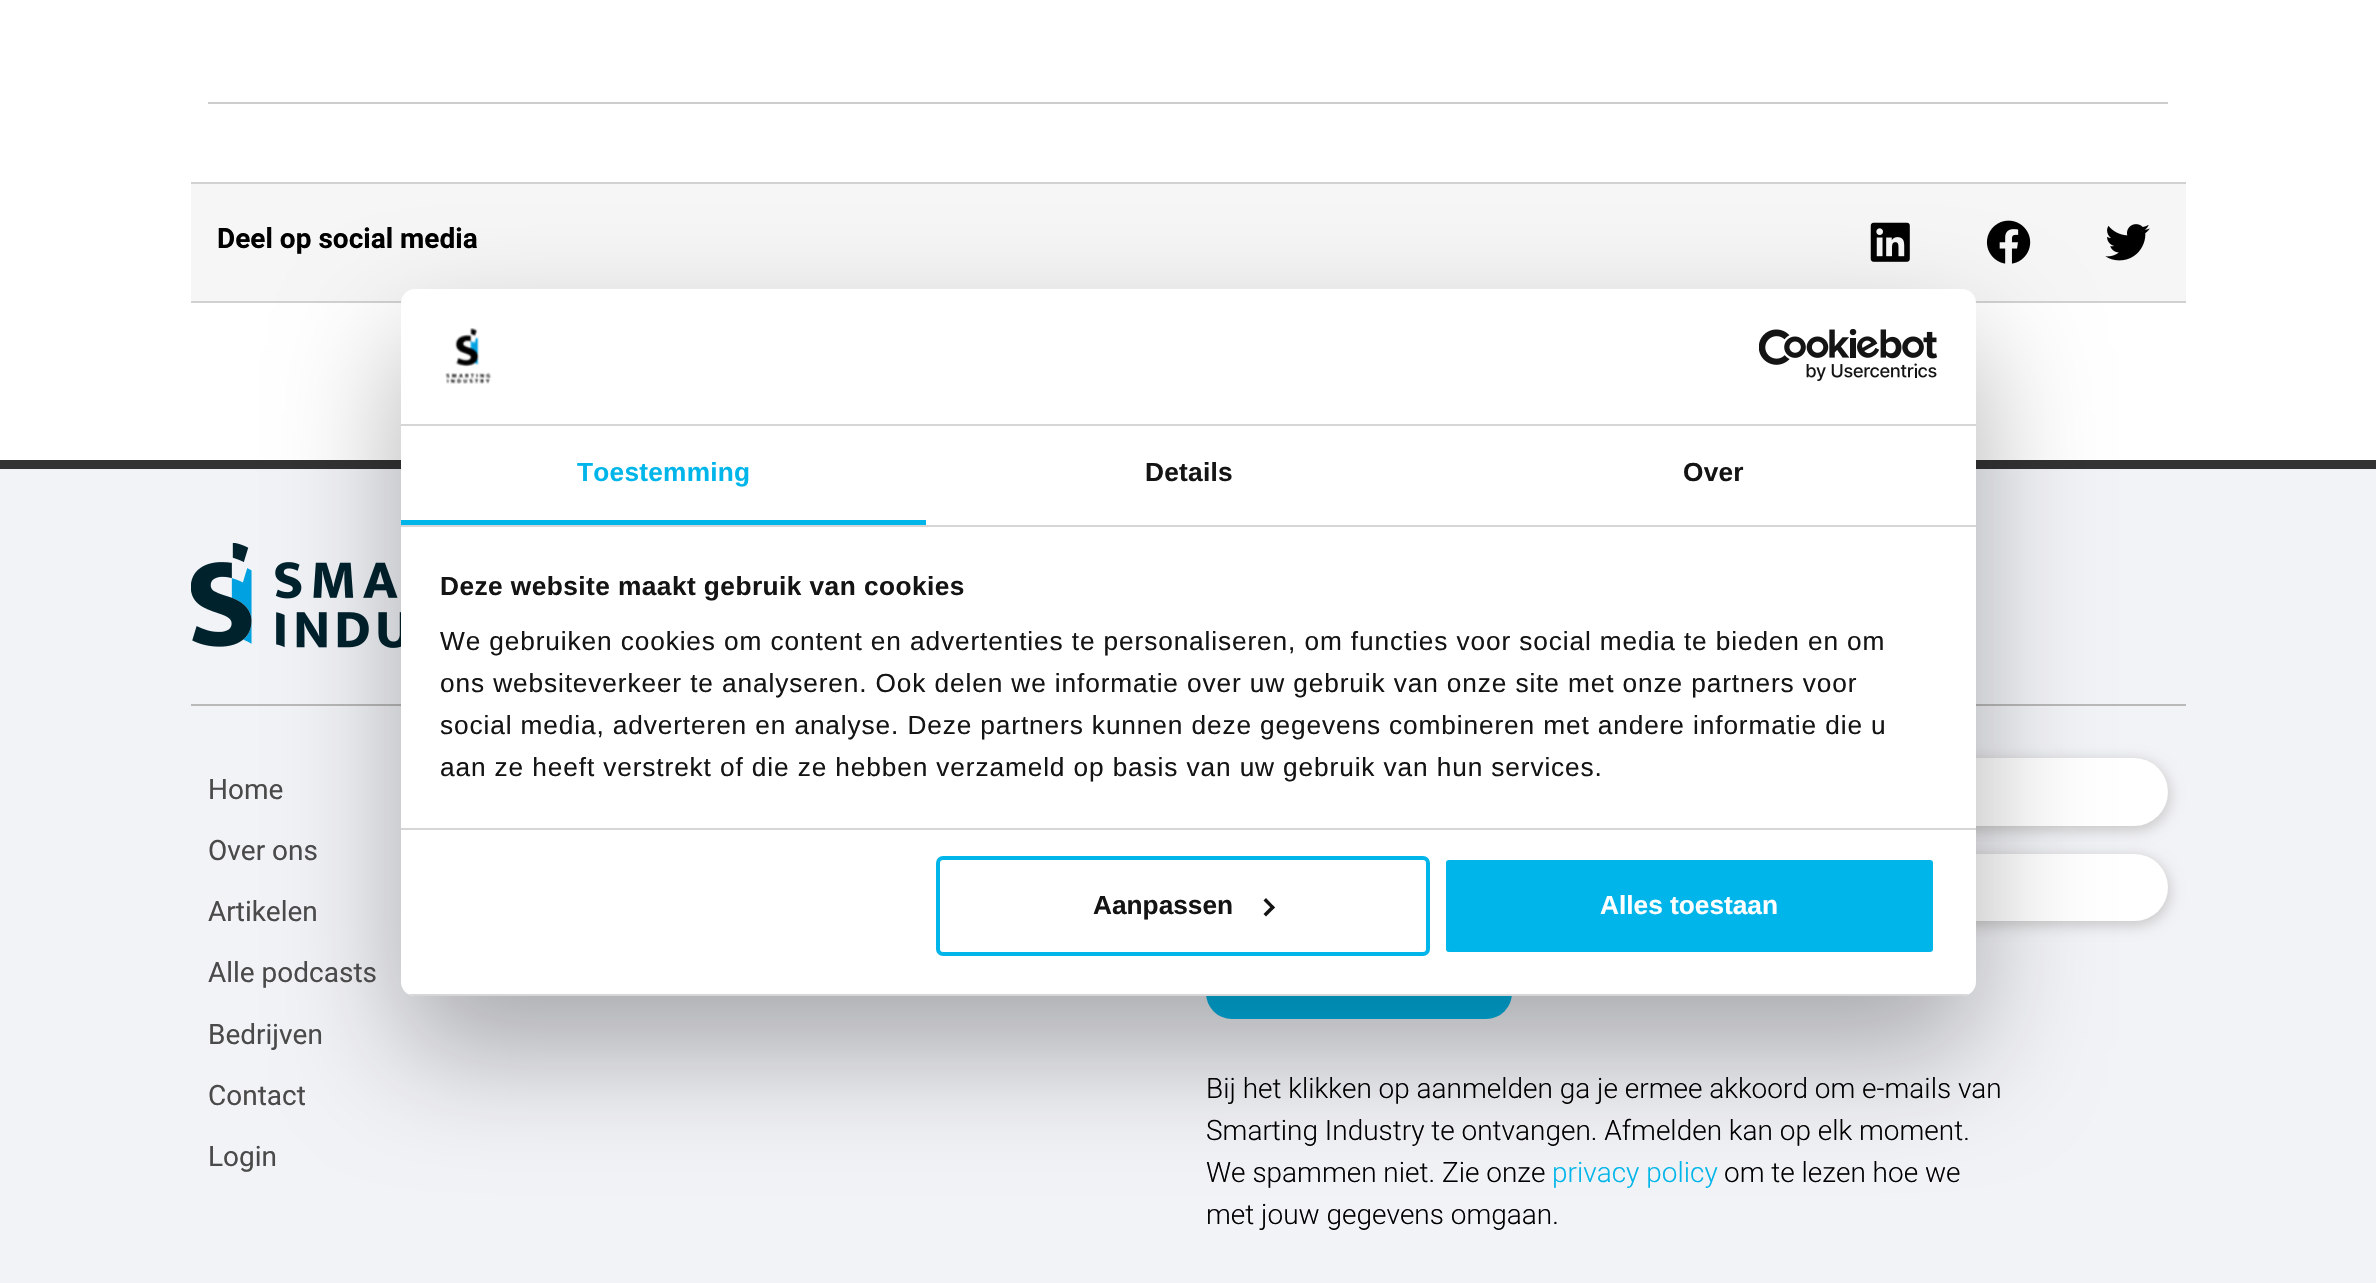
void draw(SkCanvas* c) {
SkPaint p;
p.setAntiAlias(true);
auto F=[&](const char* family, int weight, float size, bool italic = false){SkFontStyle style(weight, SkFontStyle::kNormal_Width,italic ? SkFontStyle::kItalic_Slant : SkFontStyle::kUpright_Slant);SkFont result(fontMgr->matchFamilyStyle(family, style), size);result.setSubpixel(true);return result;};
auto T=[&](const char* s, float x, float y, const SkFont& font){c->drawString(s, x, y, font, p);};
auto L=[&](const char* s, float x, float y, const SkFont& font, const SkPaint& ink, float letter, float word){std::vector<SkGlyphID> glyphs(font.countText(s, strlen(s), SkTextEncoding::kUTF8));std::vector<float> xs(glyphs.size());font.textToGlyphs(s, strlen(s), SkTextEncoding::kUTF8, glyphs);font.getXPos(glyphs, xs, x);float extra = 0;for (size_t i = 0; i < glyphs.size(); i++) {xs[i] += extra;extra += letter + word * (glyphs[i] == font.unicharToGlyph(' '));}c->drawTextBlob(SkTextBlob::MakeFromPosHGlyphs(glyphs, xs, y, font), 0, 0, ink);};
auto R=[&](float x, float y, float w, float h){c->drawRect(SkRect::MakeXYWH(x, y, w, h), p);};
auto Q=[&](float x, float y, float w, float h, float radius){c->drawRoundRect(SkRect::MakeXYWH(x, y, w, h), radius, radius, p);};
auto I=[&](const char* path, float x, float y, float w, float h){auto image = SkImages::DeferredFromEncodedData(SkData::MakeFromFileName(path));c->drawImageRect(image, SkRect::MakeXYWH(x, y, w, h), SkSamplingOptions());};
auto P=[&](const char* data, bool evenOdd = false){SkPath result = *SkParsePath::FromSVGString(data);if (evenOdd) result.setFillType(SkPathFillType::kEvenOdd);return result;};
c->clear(0xffffffff);
p.setColor(0xffcdcdcd);
R(208,102,1960,2);
p.setColor(0xfff6f6f6);
R(191,184,1995,117);
p.setColor(0xffd1d1d1);
R(191,182,1995,2);
R(191,301,1995,2);
auto f1 = F("Roboto",700,28);
p.setColor(0xff000000);
T("Deel op social media",217,248,f1);
I("1.png",1870,222,40,40);
I("2.png",1986,220,45,44);
I("3.png",2105,224,45,37);
p.setColor(0xfff2f3f7);
R(0,469,2376,814);
p.setColor(0xff333333);
R(0,460,2376,9);
p.setColor(0xffb9b9b9);
R(191,704,1995,2);
I("6.png",191,543,210,105);
p.setColor(0xffc9c9c9);
p.setMaskFilter(SkMaskFilter::MakeBlur(kNormal_SkBlurStyle, 7));
c->drawRoundRect(SkRect::MakeXYWH(1204,760,966,71),35.5,35.5,p);
p.setMaskFilter(nullptr);
p.setColor(0xffffffff);
Q(1206,758,962,68,34);
p.setColor(0xffc9c9c9);
p.setMaskFilter(SkMaskFilter::MakeBlur(kNormal_SkBlurStyle, 7));
c->drawRoundRect(SkRect::MakeXYWH(1696,856,474,70),35,35,p);
p.setMaskFilter(nullptr);
p.setColor(0xffffffff);
Q(1698,854,470,67,33.5);
p.setColor(0xff00b5e9);
Q(1206,949,306,70,26);
p.setColor(0x4d000000);
p.setMaskFilter(SkMaskFilter::MakeBlur(kNormal_SkBlurStyle, 59.5));
c->drawRoundRect(SkRect::MakeXYWH(401,345,1575,707),14,14,p);
p.setMaskFilter(nullptr);
p.setColor(0xffffffff);
Q(401,289,1575,707,14);
p.setColor(0xffd6d6d6);
R(401,424,1575,2);
I("4.png",445,328,47,56);
I("5.png",1759,329,178,52);
R(401,525,1575,2);
p.setColor(0xff00b5e9);
R(401,520,525,5);
auto f2 = F("Liberation Sans",700,26.25);
L("Toestemming",577,481,f2,p,.25,0);
p.setColor(0xff141414);
L("Details",1145,481,f2,p,.25,0);
L("Over",1683,481,f2,p,.25,0);
p.setColor(0xffd6d6d6);
R(401,828,1575,2);
p.setColor(0xff141414);
L("Deze website maakt gebruik van cookies",440,595,f2,p,.45,0);
auto f3 = F("Liberation Sans",400,26.25);
L("We gebruiken cookies om content en advertenties te personaliseren, om functies voor social media te bieden en om",440,650,f3,p,.88,0);
L("ons websiteverkeer te analyseren. Ook delen we informatie over uw gebruik van onze site met onze partners voor",440,692,f3,p,.88,0);
L("social media, adverteren en analyse. Deze partners kunnen deze gegevens combineren met andere informatie die u",440,734,f3,p,.88,0);
L("aan ze heeft verstrekt of die ze hebben verzameld op basis van uw gebruik van hun services.",440,776,f3,p,.88,0);
c->save();
c->clipPath(P("M415 289h1547c7.5 0 14 6.5 14 14v679c0 7.5-6.5 14-14 14h-1547c-7.5 0-14-6.5-14-14v-679c0-7.5 6.5-14 14-14z"),true);
p.setColor(0xffd6d6d6);
R(401,994,1575,2);
c->restore();
p.setStroke(true);
p.setStrokeWidth(4);
p.setColor(0xff00b5e9);
c->drawRoundRect(SkRect::MakeXYWH(938,858,490,96),5,5,p);
p.setStroke(false);
p.setColor(0xff141414);
T("Aanpassen",1093,914,f2);
c->drawPath(P("M1266 898l9 9.5l-2.5 2l-9-9z"),p);
c->drawPath(P("M1272.5 905l2.5 2.5l-9 9l-2.5-2.5z"),p);
p.setColor(0xff00b5e9);
c->drawRoundRect(SkRect::MakeXYWH(1444,858,491,96),5,5,p);
p.setStroke(true);
p.setColor(0xffffffff);
c->drawRoundRect(SkRect::MakeXYWH(1444,858,491,96),5,5,p);
p.setStroke(false);
T("Alles toestaan",1600,914,f2);
auto f4 = F("Roboto",400,28);
p.setColor(0xff4a4a4a);
T("Home",208,799,f4);
T("Over ons",208,860,f4);
T("Artikelen",208,921,f4);
T("Alle podcasts",208,982,f4);
T("Bedrijven",208,1044,f4);
T("Contact",208,1105,f4);
T("Login",208,1166,f4);
auto f5 = F("Roboto",300,28);
p.setColor(0xff000000);
T("Bij het klikken op aanmelden ga je ermee akkoord om e-mails van",1206,1098,f5);
T("Smarting Industry te ontvangen. Afmelden kan op elk moment.",1206,1140,f5);
T("We spammen niet. Zie onze",1206,1182,f5);
p.setColor(0xff00b5e9);
T("privacy policy",1552,1182,f5);
p.setColor(0xff000000);
T("om te lezen hoe we",1724,1182,f5);
T("met jouw gegevens omgaan.",1206,1224,f5);
}
